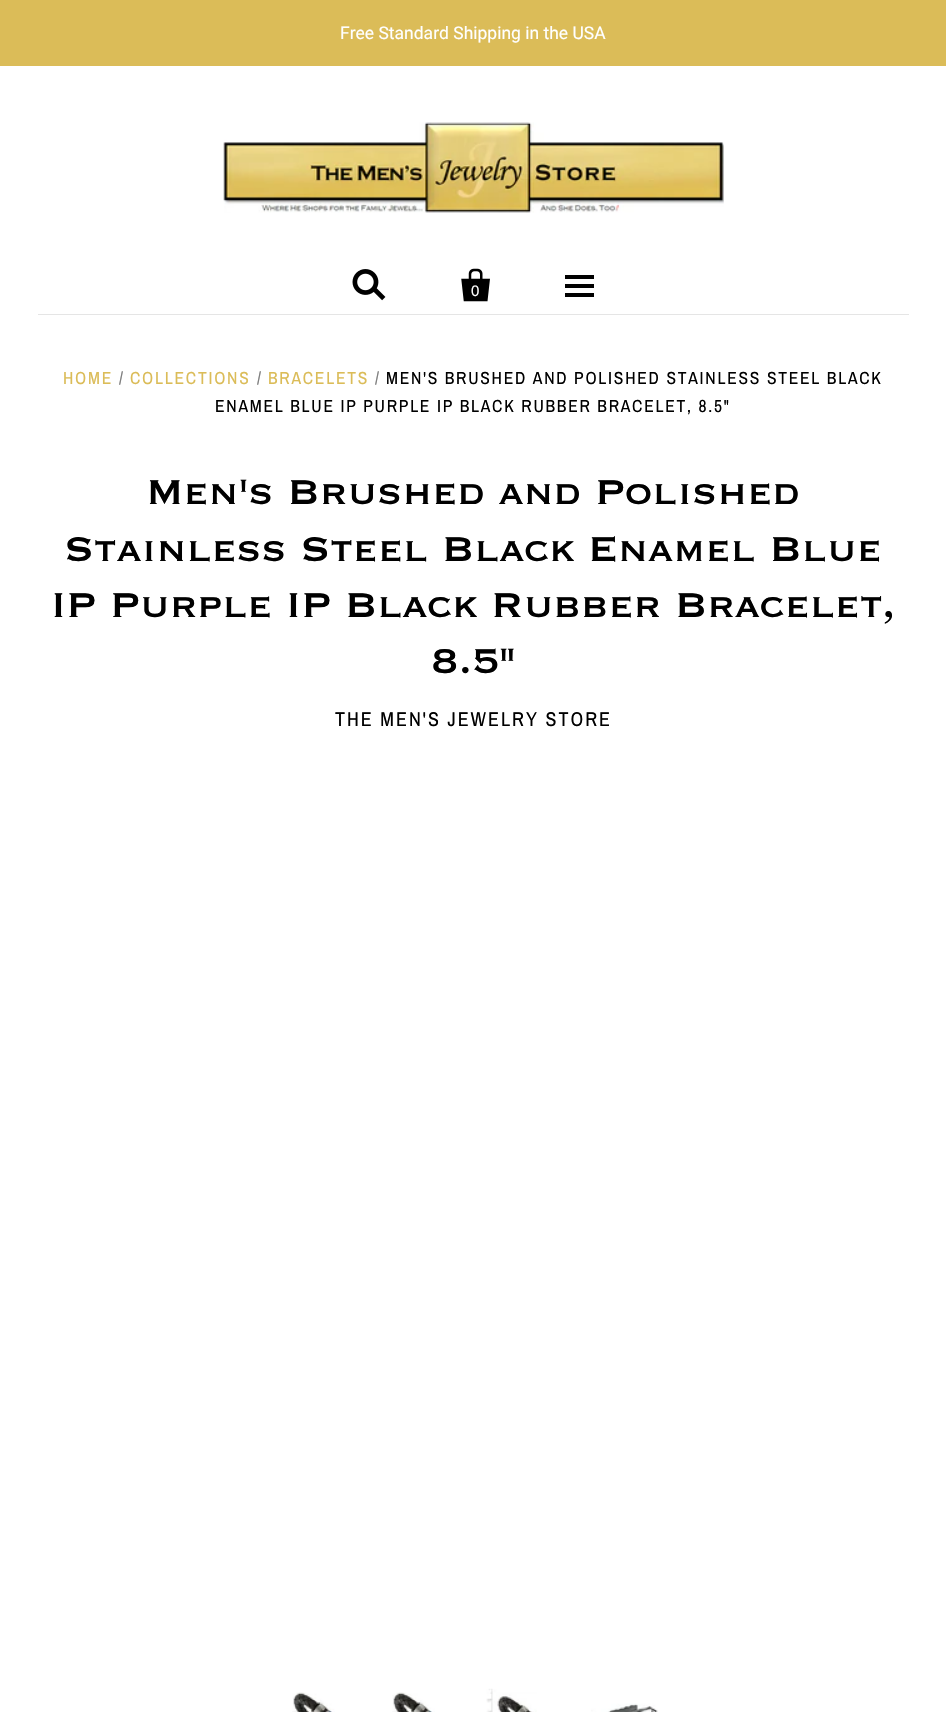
void draw(SkCanvas* c) {
SkPaint p;
p.setAntiAlias(true);
auto F=[&](const char* family, int weight, float size, bool italic = false){SkFontStyle style(weight, SkFontStyle::kNormal_Width,italic ? SkFontStyle::kItalic_Slant : SkFontStyle::kUpright_Slant);SkFont result(fontMgr->matchFamilyStyle(family, style), size);result.setSubpixel(true);return result;};
auto T=[&](const char* s, float x, float y, const SkFont& font){c->drawString(s, x, y, font, p);};
auto L=[&](const char* s, float x, float y, const SkFont& font, const SkPaint& ink, float letter, float word){std::vector<SkGlyphID> glyphs(font.countText(s, strlen(s), SkTextEncoding::kUTF8));std::vector<float> xs(glyphs.size());font.textToGlyphs(s, strlen(s), SkTextEncoding::kUTF8, glyphs);font.getXPos(glyphs, xs, x);float extra = 0;for (size_t i = 0; i < glyphs.size(); i++) {xs[i] += extra;extra += letter + word * (glyphs[i] == font.unicharToGlyph(' '));}c->drawTextBlob(SkTextBlob::MakeFromPosHGlyphs(glyphs, xs, y, font), 0, 0, ink);};
auto R=[&](float x, float y, float w, float h){c->drawRect(SkRect::MakeXYWH(x, y, w, h), p);};
auto I=[&](const char* path, float x, float y, float w, float h){auto image = SkImages::DeferredFromEncodedData(SkData::MakeFromFileName(path));c->drawImageRect(image, SkRect::MakeXYWH(x, y, w, h), SkSamplingOptions());};
c->clear(0xffffffff);
p.setColor(0xffdbbc58);
R(0,0,946,66);
auto f1 = F("Roboto",400,17.5);
p.setColor(0xffffffff);
T("Free Standard Shipping in the USA",340,39,f1);
p.setColor(0xffe5e5e5);
R(38,314,871,1);
I("1.png",223,122,501,91);
I("2.png",352,269,34,32);
I("3.png",461,268,29,34);
auto f2 = F("Liberation Sans",400,15);
p.setColor(0xffffffff);
T("0",471,296,f2);
p.setColor(0xff000000);
R(565,284,29,4);
R(565,275,29,4);
R(565,293,29,4);
auto f3 = F("Archivo Narrow",400,17.5);
p.setColor(0xffdbbc58);
L("HOME",63,384,f3,p,1.75,0);
p.setColor(0xff7f7f7f);
L("/",119,384,f3,p,1.75,0);
p.setColor(0xffdbbc58);
L("COLLECTIONS",130,384,f3,p,1.75,0);
p.setColor(0xff7f7f7f);
L("/",257,384,f3,p,1.75,0);
p.setColor(0xffdbbc58);
L("BRACELETS",268,384,f3,p,1.75,0);
p.setColor(0xff7f7f7f);
L("/",375,384,f3,p,1.75,0);
p.setColor(0xff000000);
L("MEN'S BRUSHED AND POLISHED STAINLESS STEEL BLACK",386,384,f3,p,1.75,0);
L("ENAMEL BLUE IP PURPLE IP BLACK RUBBER BRACELET, 8.5\"",215,412,f3,p,1.75,0);
auto f4 = F("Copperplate",400,45);
T("Men's Brushed and Polished",146,504,f4);
T("Stainless Steel Black Enamel Blue",64,561,f4);
T("IP Purple IP Black Rubber Bracelet,",51,617,f4);
T("8.5\"",431,673,f4);
auto f5 = F("Archivo Narrow",400,20);
L("THE MEN'S JEWELRY STORE",335,726,f5,p,2,0);
I("4.png",292,1692,43,20);
I("5.png",392,1692,43,20);
I("6.png",486,1688,51,24);
I("7.png",591,1703,67,9);
}
